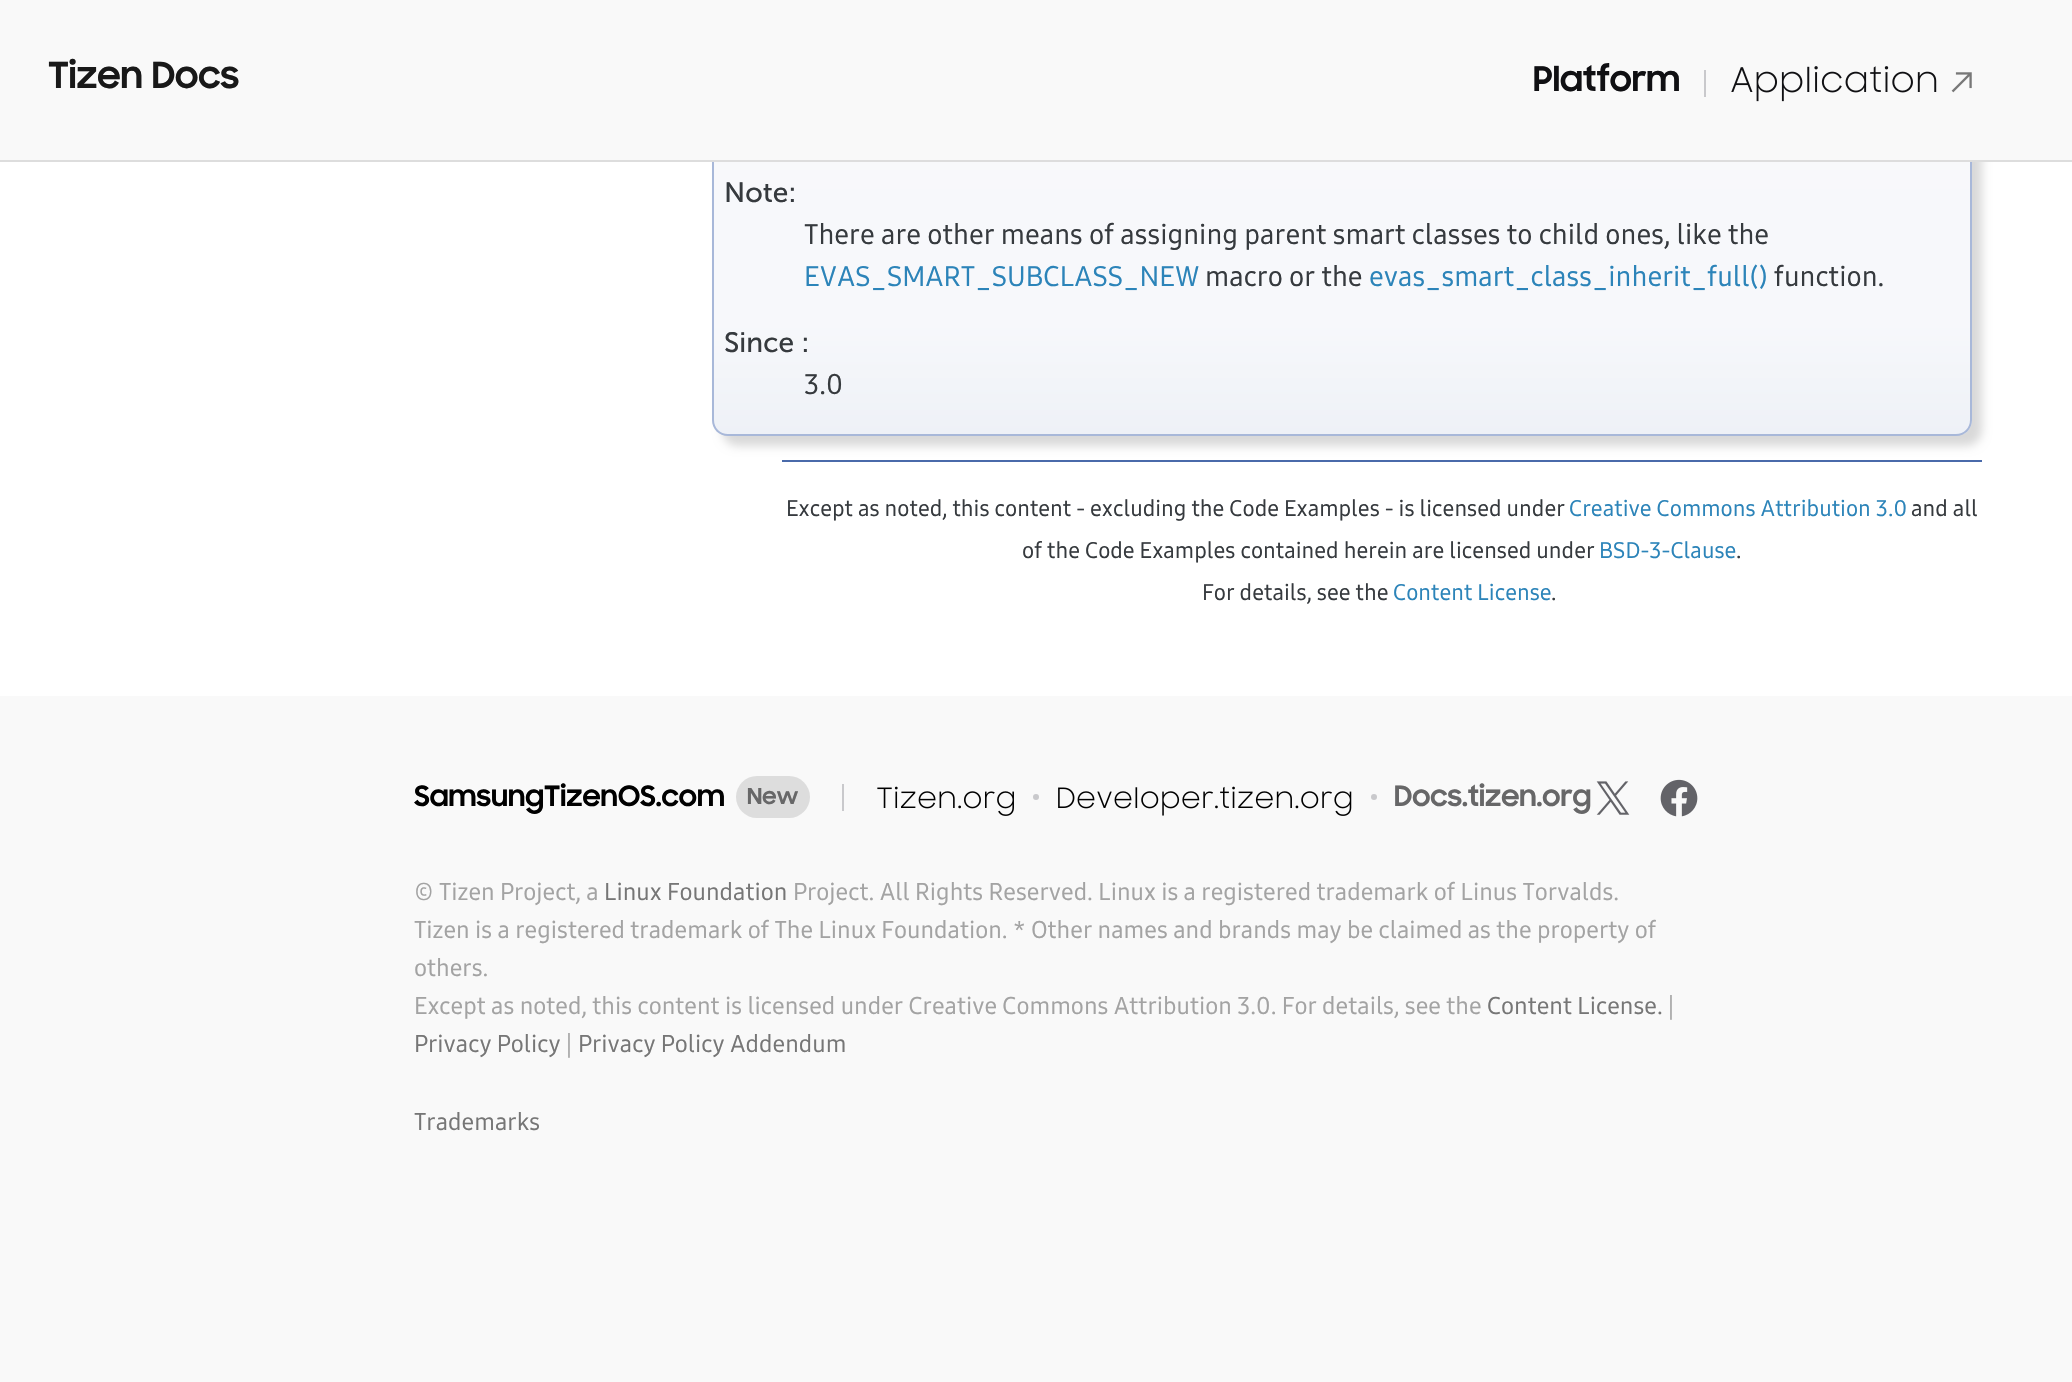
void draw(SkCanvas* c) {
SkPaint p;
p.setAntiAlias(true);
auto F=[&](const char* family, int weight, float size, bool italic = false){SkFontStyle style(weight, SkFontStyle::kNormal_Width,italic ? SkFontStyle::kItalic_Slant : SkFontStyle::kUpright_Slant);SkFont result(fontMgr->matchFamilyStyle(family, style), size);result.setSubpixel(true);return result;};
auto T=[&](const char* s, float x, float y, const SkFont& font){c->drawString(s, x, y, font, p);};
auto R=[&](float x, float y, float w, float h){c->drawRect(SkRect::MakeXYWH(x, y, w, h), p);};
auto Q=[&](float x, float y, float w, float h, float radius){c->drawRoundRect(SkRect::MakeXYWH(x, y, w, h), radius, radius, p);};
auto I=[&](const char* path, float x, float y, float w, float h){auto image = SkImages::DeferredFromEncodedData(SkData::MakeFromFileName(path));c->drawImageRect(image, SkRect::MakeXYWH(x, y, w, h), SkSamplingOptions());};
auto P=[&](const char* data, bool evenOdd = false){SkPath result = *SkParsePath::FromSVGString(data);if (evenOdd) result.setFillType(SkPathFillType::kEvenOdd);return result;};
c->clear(0xffffffff);
p.setColor(0x26000000);
p.setMaskFilter(SkMaskFilter::MakeBlur(kNormal_SkBlurStyle, 5));
c->drawRoundRect(SkRect::MakeXYWH(722,-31,1260,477),16,16,p);
p.setMaskFilter(nullptr);
c->save();
c->clipPath(P("M712-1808h1260v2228c0 9-7 16-16 16h-1228c-9 0-16-7-16-16z"),true);
{
const SkColor colors[] = {0xffffffff,0xfff7f8fb,0xffeef1f7};
const float stops[] = {0,.95,1};
const SkPoint ends[] = {{1342,-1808}, {1342,434}};
p.setShader(SkGradientShader::MakeLinear(ends, colors, stops, 3, SkTileMode::kClamp));
p.setAlpha(255);
}
R(712,162,1260,272);
c->restore();
p.setShader(nullptr);
p.setColor(0xffa8b8d9);
c->drawPath(P("M712-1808h1260v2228c0 9-7 16-16 16h-1228c-9 0-16-7-16-16zm2 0h1256v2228c0 8-6 14-14 14h-1228c-8 0-14-6-14-14z",true),p);
p.setColor(0xfff9f9f9);
R(0,0,2072,160);
p.setColor(0xffdddddd);
R(0,160,2072,2);
auto f1 = F("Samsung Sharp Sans",700,36);
p.setColor(0xff191919);
T("Tizen Docs",48,88,f1);
auto f2 = F("Samsung Sharp Sans",700,34);
p.setColor(0xff101013);
T("Platform",1533,91,f2);
p.setColor(0xffc9c9cc);
R(1704,70,2,27);
I("1.png",1731,66,206,36);
I("2.png",1951,72,21,21);
auto f3 = F("Museo Sans",400,28);
p.setColor(0xff363a3e);
T("Note:",724,202,f3);
auto f4 = F("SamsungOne",500,28);
T("There are other means of assigning parent smart classes to child ones, like the",804,244,f4);
p.setColor(0xff2c84b9);
T("EVAS_SMART_SUBCLASS_NEW",804,286,f4);
p.setColor(0xff363a3e);
T("macro or the",1205,286,f4);
p.setColor(0xff2c84b9);
T("evas_smart_class_inherit_full()",1369,286,f4);
p.setColor(0xff363a3e);
T("function.",1774,286,f4);
T("Since :",724,352,f3);
T("3.0",804,394,f4);
p.setColor(0xff4a6aaa);
R(782,460,1200,2);
auto f5 = F("SamsungOne",500,22.4);
p.setColor(0xff363a3e);
T("Except as noted, this content - excluding the Code Examples - is licensed under",786,516,f5);
p.setColor(0xff2c84b9);
T("Creative Commons Attribution 3.0",1569,516,f5);
p.setColor(0xff363a3e);
T("and all",1911,516,f5);
T("of the Code Examples contained herein are licensed under",1022,558,f5);
p.setColor(0xff2c84b9);
T("BSD-3-Clause",1599,558,f5);
p.setColor(0xff363a3e);
T(".",1736,558,f5);
T("For details, see the",1202,600,f5);
p.setColor(0xff2c84b9);
T("Content License",1393,600,f5);
p.setColor(0xff363a3e);
T(".",1551,600,f5);
p.setColor(0xfff9f9f9);
R(0,696,2072,686);
auto f6 = F("Samsung Sharp Sans",700,28);
p.setColor(0xff000000);
T("SamsungTizenOS.com",414,806,f6);
p.setColor(0xffdddddd);
Q(736,776,74,42,21);
auto f7 = F("Samsung Sharp Sans",700,22);
p.setColor(0xff676768);
T("New",747,804,f7);
p.setColor(0xffc9c9cc);
R(842,784,2,27);
I("3.png",877,786,137,30);
c->drawCircle(1036,797,3,p);
I("4.png",1058,786,294,30);
c->drawCircle(1374,797,3,p);
p.setColor(0xff676768);
T("Docs.tizen.org",1394,806,f6);
I("5.png",1596,781,34,34);
I("6.png",1660,779,38,38);
auto f8 = F("SamsungOne",500,24);
p.setColor(0xffa3a3a3);
T("© Tizen Project, a",414,900,f8);
p.setColor(0xff767676);
T("Linux Foundation",604,900,f8);
p.setColor(0xffa3a3a3);
T("Project. All Rights Reserved. Linux is a registered trademark of Linus Torvalds.",793,900,f8);
T("Tizen is a registered trademark of The Linux Foundation. * Other names and brands may be claimed as the property of",414,938,f8);
T("others.",414,976,f8);
T("Except as noted, this content is licensed under Creative Commons Attribution 3.0. For details, see the",414,1014,f8);
p.setColor(0xff767676);
T("Content License.",1487,1014,f8);
p.setColor(0xffa3a3a3);
T("|",1668,1014,f8);
p.setColor(0xff767676);
T("Privacy Policy",414,1052,f8);
p.setColor(0xffa3a3a3);
T("|",566,1052,f8);
p.setColor(0xff767676);
T("Privacy Policy Addendum",578,1052,f8);
T("Trademarks",414,1130,f8);
}
